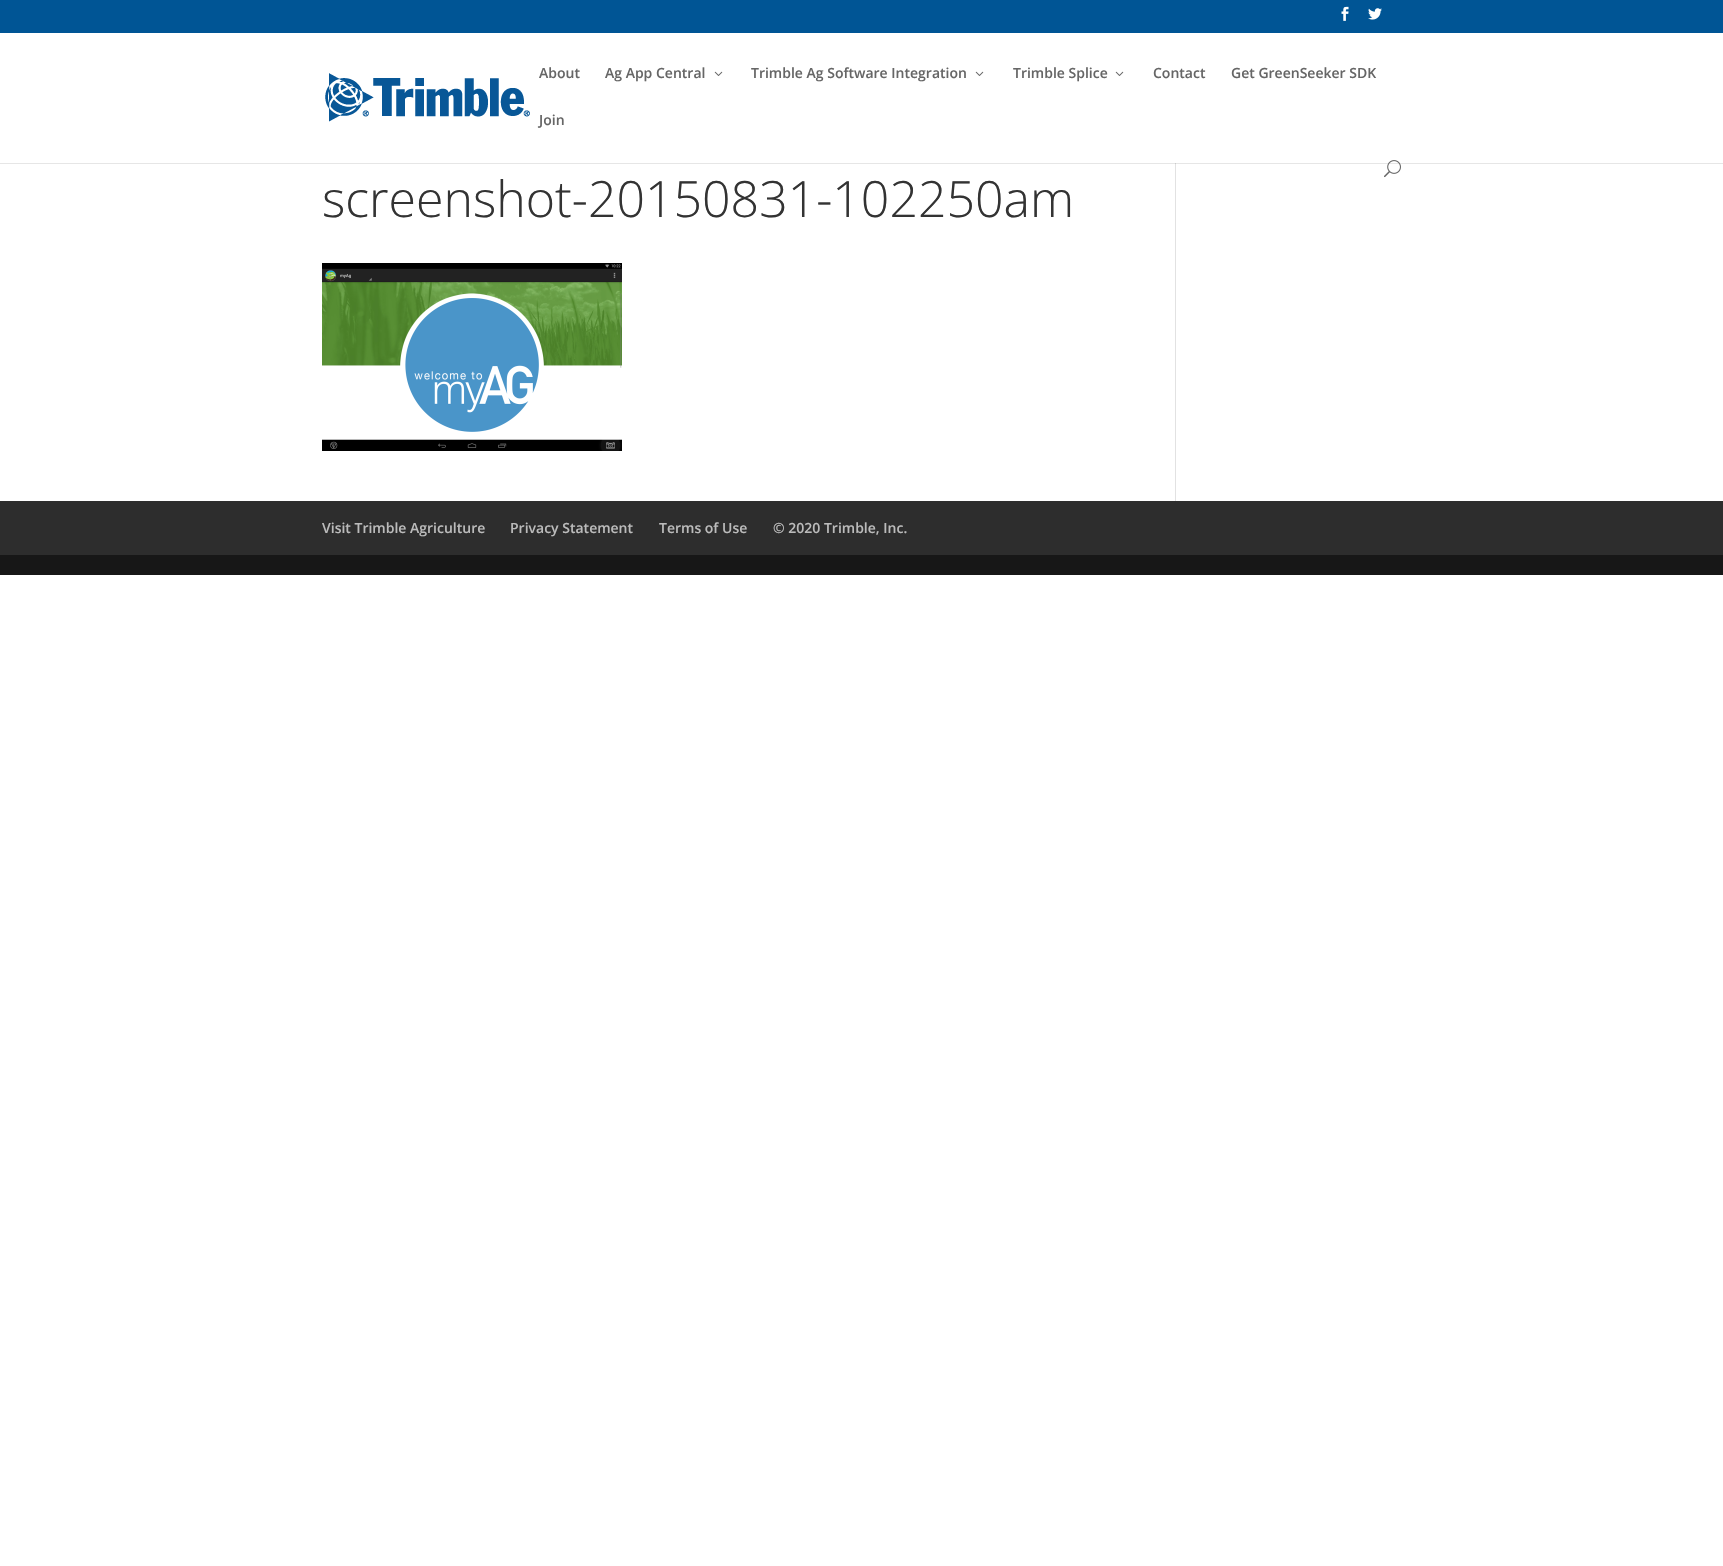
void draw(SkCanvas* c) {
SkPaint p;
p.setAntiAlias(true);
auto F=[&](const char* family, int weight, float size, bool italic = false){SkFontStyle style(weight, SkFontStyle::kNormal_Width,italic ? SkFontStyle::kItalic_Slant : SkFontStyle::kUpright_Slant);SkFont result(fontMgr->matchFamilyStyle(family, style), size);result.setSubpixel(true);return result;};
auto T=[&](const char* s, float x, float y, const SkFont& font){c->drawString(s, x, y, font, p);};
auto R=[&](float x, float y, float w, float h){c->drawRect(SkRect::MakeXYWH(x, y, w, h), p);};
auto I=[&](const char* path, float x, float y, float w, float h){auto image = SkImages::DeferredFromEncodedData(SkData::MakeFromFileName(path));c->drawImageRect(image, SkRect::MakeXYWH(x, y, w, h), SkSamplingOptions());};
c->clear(0xffffffff);
p.setColor(0xffe6e6e6);
R(0,163,1723,1);
p.setColor(0xff005595);
R(0,0,1723,33);
I("1.png",1341,6,8,15);
I("2.png",1368,8,14,12);
I("3.png",325,73,205,49);
auto f1 = F("Open Sans",600,14);
p.setColor(0xff666666);
T("About",539,78,f1);
T("Ag App Central",605,78,f1);
I("4.png",714,71,9,5);
T("Trimble Ag Software Integration",751,78,f1);
I("4.png",975,71,9,5);
T("Trimble Splice",1013,78,f1);
I("4.png",1115,71,9,5);
T("Contact",1153,78,f1);
T("Get GreenSeeker SDK",1231,78,f1);
T("Join",539,125,f1);
I("5.png",1384,160,17,18);
auto f2 = F("Open Sans",300,50);
p.setColor(0xff333333);
T("screenshot-20150831-102250am",322,217,f2);
I("6.png",322,263,300,188);
p.setColor(0xffe2e2e2);
R(1175,164,1,337);
p.setColor(0xffcbcbcb);
R(1175,163,1,1);
p.setColor(0xff2d2d2d);
R(0,501,1723,54);
p.setColor(0xffbbbbbb);
T("Visit Trimble Agriculture",322,533,f1);
T("Privacy Statement",510,533,f1);
T("Terms of Use",659,533,f1);
T("© 2020 Trimble, Inc.",773,533,f1);
p.setColor(0xff171717);
R(0,555,1723,20);
}
